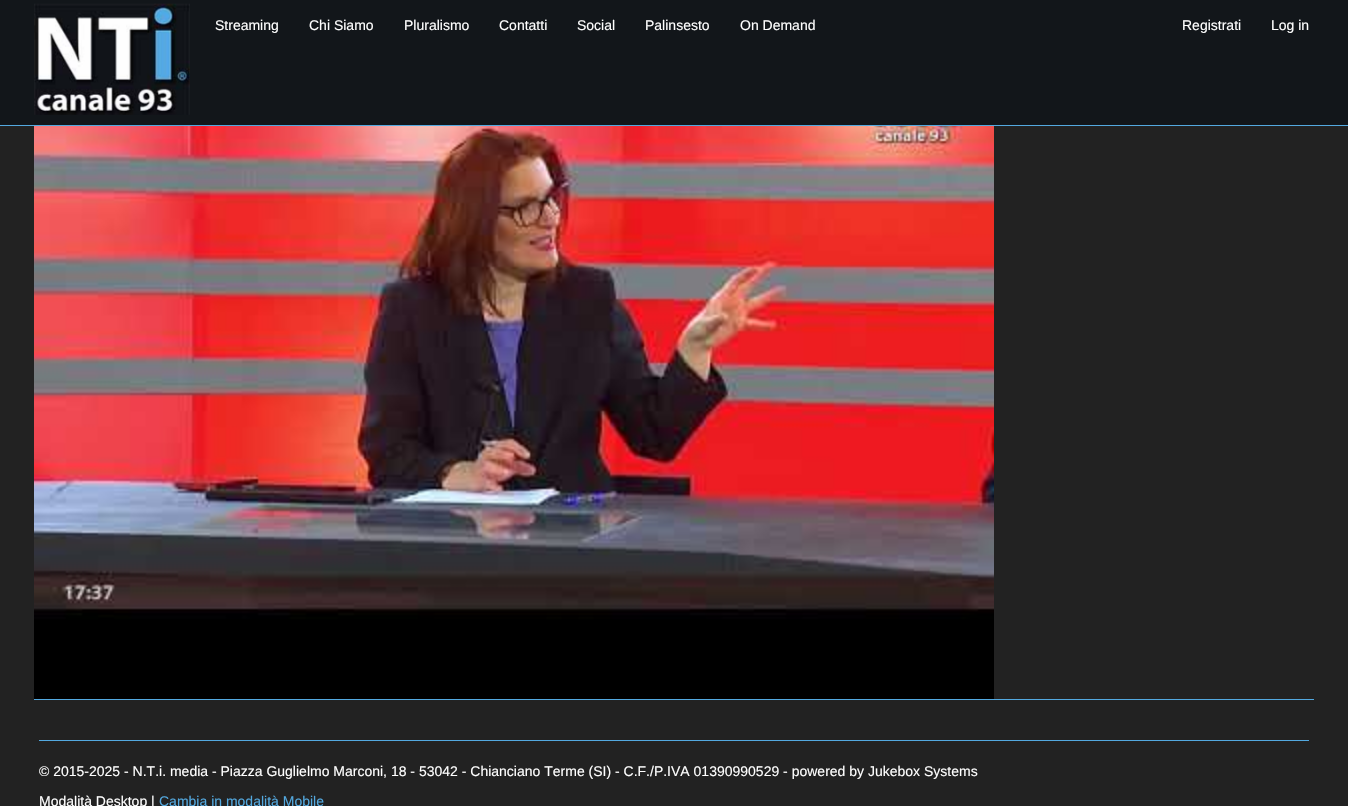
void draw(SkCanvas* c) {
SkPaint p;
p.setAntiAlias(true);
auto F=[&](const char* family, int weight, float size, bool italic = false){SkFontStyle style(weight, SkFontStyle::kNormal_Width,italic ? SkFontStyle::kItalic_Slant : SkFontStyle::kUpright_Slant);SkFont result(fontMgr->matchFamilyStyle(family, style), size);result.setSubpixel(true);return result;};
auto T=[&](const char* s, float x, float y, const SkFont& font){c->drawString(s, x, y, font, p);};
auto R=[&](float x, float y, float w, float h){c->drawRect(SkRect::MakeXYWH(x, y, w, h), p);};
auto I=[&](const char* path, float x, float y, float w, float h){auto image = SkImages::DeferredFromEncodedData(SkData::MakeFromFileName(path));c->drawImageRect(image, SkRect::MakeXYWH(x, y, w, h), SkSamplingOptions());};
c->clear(0xff222222);
p.setColor(0xff12161a);
R(0,0,1348,125);
p.setColor(0xff53a9e0);
R(0,125,1348,1);
I("1.png",34,3,156,112);
auto f1 = F("Liberation Sans",400,14);
p.setColor(0xffffffff);
T("Streaming",215,30,f1);
T("Chi Siamo",309,30,f1);
T("Pluralismo",404,30,f1);
T("Contatti",499,30,f1);
T("Social",577,30,f1);
T("Palinsesto",645,30,f1);
T("On Demand",740,30,f1);
T("Registrati",1182,30,f1);
T("Log in",1271,30,f1);
I("2.png",34,126,960,573);
p.setColor(0xff53a9e0);
R(34,699,1280,1);
R(39,740,1270,1);
p.setColor(0xffffffff);
T("© 2015-2025 - N.T.i. media - Piazza Guglielmo Marconi, 18 - 53042 - Chianciano Terme (SI) - C.F./P.IVA 01390990529 - powered by Jukebox Systems",39,776,f1);
T("Modalità Desktop |",39,806,f1);
p.setColor(0xff53a9e0);
T("Cambia in modalità Mobile",159,806,f1);
}
